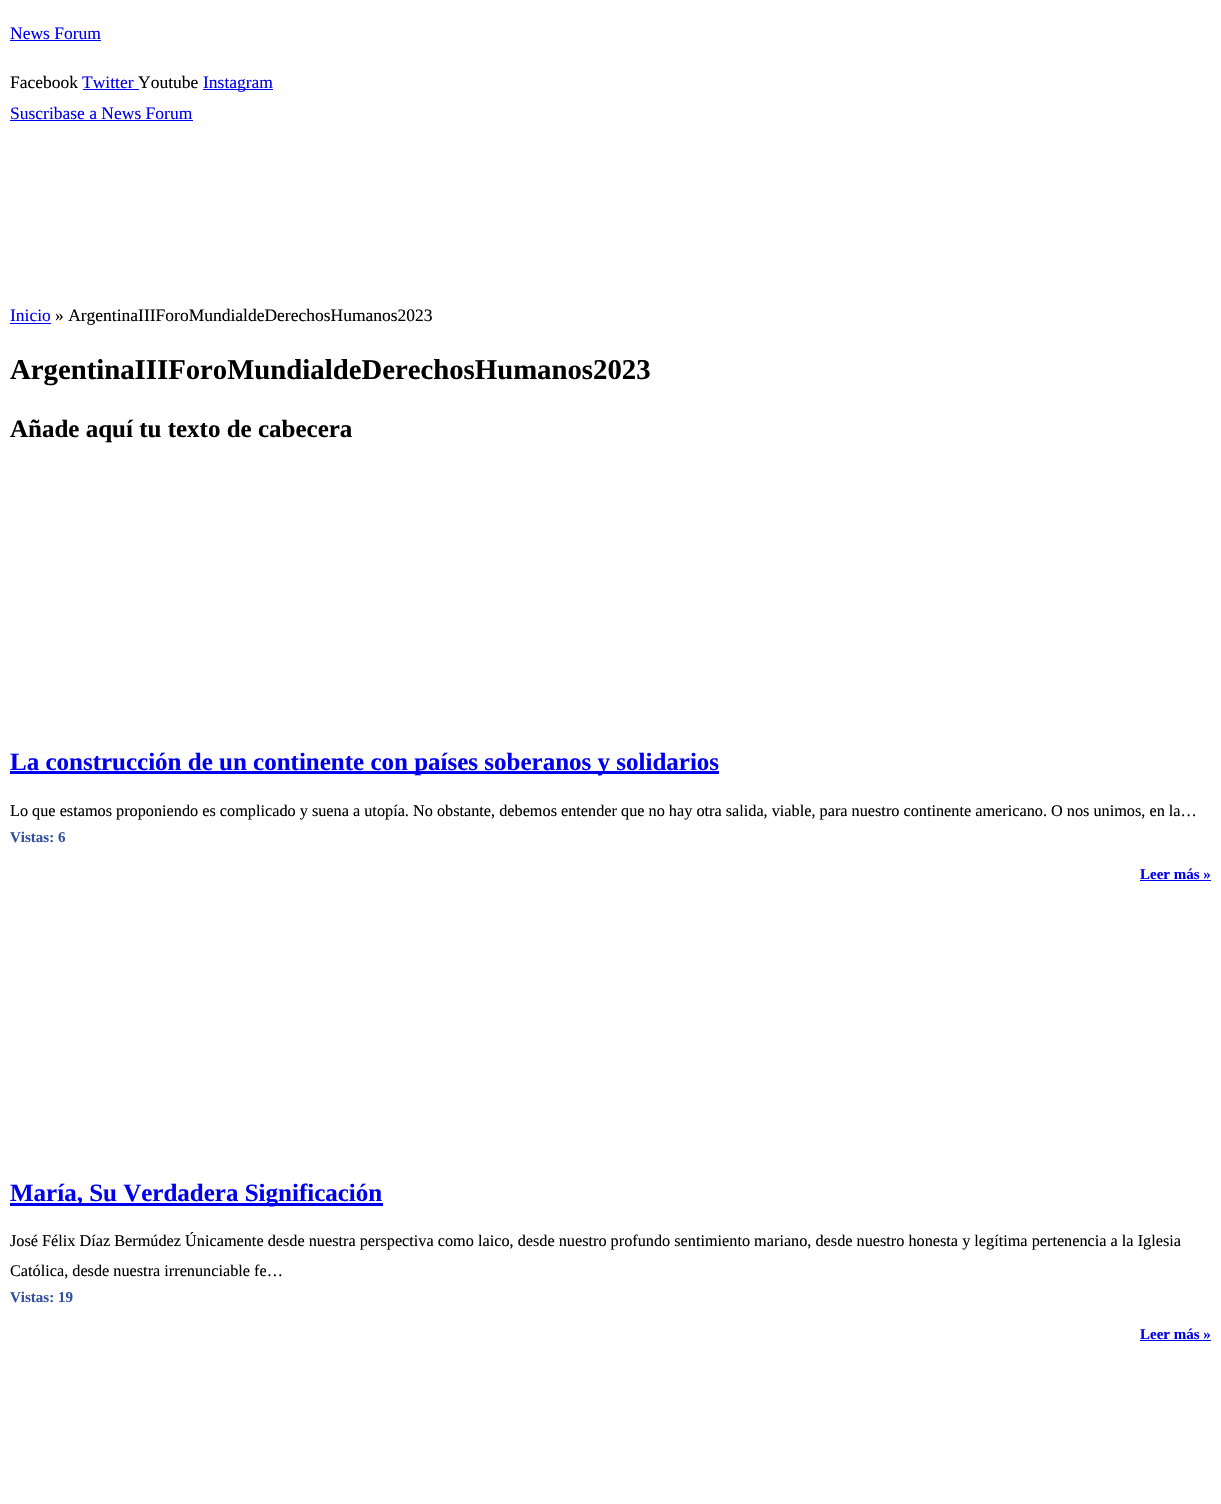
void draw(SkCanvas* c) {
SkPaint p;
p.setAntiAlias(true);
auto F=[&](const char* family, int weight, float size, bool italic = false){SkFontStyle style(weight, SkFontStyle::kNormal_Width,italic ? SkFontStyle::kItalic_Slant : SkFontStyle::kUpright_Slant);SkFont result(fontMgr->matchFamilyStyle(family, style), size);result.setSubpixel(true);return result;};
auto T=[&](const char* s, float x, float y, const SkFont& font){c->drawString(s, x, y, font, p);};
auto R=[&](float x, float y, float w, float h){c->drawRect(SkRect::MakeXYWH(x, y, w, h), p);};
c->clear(0xffffffff);
auto f1 = F("Liberation Serif",400,17.5);
p.setColor(0xff0000ee);
T("News Forum",10,39,f1);
R(10,40,91,1);
p.setColor(0xff000000);
T("Facebook",10,88,f1);
p.setColor(0xff0000ee);
T("Twitter",82,88,f1);
R(83,89,56,1);
p.setColor(0xff000000);
T("Youtube",138,88,f1);
p.setColor(0xff0000ee);
R(203,89,70,1);
T("Instagram",203,88,f1);
T("Suscribase a News Forum",10,119,f1);
R(10,120,183,1);
T("Inicio",10,321,f1);
R(10,323,41,1);
p.setColor(0xff000000);
T("» ArgentinaIIIForoMundialdeDerechosHumanos2023",55,321,f1);
auto f2 = F("Liberation Serif",700,28.75);
T("ArgentinaIIIForoMundialdeDerechosHumanos2023",10,379,f2);
auto f3 = F("Liberation Serif",700,25);
T("Añade aquí tu texto de cabecera",10,437,f3);
p.setColor(0xff0000ee);
R(10,771,709,3);
T("La construcción de un continente con países soberanos y solidarios",10,770,f3);
auto f4 = F("Liberation Serif",400,16.25);
p.setColor(0xff000000);
T("Lo que estamos proponiendo es complicado y suena a utopía. No obstante, debemos entender que no hay otra salida, viable, para nuestro continente americano. O nos unimos, en la…",10,816,f4);
auto f5 = F("Liberation Serif",700,15);
p.setColor(0xff31519f);
T("Vistas: 6",10,842,f5);
p.setColor(0xff0000ee);
T("Leer más »",1140,879,f5);
R(1140,880,71,1);
R(10,1203,373,3);
T("María, Su Verdadera Significación",10,1201,f3);
p.setColor(0xff000000);
T("José Félix Díaz Bermúdez Únicamente desde nuestra perspectiva como laico, desde nuestro profundo sentimiento mariano, desde nuestro honesta y legítima pertenencia a la Iglesia",10,1246,f4);
T("Católica, desde nuestra irrenunciable fe…",10,1276,f4);
p.setColor(0xff31519f);
T("Vistas: 19",10,1302,f5);
p.setColor(0xff0000ee);
T("Leer más »",1140,1339,f5);
R(1140,1340,71,1);
}
